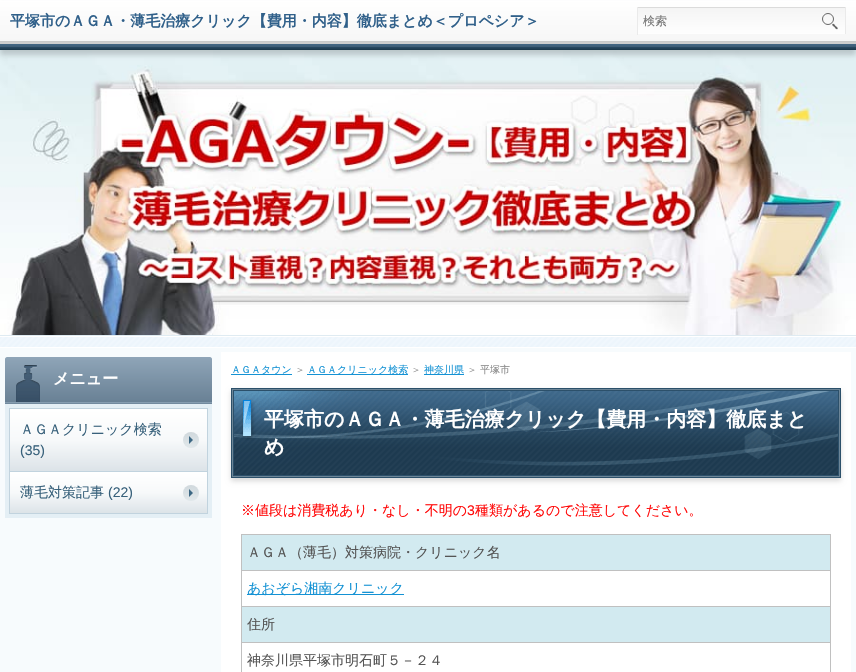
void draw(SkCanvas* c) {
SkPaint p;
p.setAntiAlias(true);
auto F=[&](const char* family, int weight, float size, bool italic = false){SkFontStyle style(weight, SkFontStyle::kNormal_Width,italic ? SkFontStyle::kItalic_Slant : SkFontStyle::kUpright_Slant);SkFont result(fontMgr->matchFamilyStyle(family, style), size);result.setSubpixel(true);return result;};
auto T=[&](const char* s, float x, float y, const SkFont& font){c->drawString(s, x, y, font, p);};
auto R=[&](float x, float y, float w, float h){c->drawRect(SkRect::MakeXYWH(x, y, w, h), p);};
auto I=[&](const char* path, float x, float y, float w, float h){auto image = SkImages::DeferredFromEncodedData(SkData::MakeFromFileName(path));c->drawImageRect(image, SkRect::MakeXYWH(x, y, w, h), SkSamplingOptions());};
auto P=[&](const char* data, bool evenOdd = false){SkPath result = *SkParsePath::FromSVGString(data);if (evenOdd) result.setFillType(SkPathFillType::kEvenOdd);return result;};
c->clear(0xffffffff);
I("1.png",0,337,856,10);
I("2.png",0,50,856,285);
p.setColor(0xccb1bdc0);
p.setMaskFilter(SkMaskFilter::MakeBlur(kNormal_SkBlurStyle, 2.5));
c->drawRect(SkRect::MakeXYWH(0,5,856,50),p);
p.setMaskFilter(nullptr);
{
const SkColor colors[] = {0xffffffff,0xfff4f4f4};
const float stops[] = {0,1};
const SkPoint ends[] = {{428,0}, {428,50}};
p.setShader(SkGradientShader::MakeLinear(ends, colors, stops, 2, SkTileMode::kClamp));
p.setAlpha(255);
}
R(0,1,856,40);
auto f1 = F("WenQuanYi Zen Hei",700,15);
p.setShader(nullptr);
p.setColor(0xff30608a);
T("平塚市のＡＧＡ・薄毛治療クリック【費用・内容】徹底まとめ＜プロペシア＞",10,26,f1);
p.setColor(0xffcecece);
R(0,42,856,2);
p.setColor(0xffc9c9c9);
R(0,41,856,1);
{
const SkColor colors[] = {0xff426785,0xff3f5c74,0xff2a4b64,0xff1a3548};
const float stops[] = {0,.5,.5,1};
const SkPoint ends[] = {{428,44}, {428,50}};
p.setShader(SkGradientShader::MakeLinear(ends, colors, stops, 4, SkTileMode::kClamp));
p.setAlpha(255);
}
R(0,44,856,6);
{
const SkColor colors[] = {0xfff4f4f4,0xfffefefe};
const float stops[] = {0,1};
const SkPoint ends[] = {{742,8}, {742,34}};
p.setShader(SkGradientShader::MakeLinear(ends, colors, stops, 2, SkTileMode::kClamp));
p.setAlpha(255);
}
R(638,8,207,26);
p.setShader(nullptr);
p.setColor(0xffdbdbdb);
R(637,7,209,1);
p.setColor(0xffeaeaea);
R(845,7,1,28);
p.setColor(0xfff7f7f7);
R(845,34,1,1);
p.setColor(0xffeaeaea);
R(637,7,1,28);
auto f2 = F("WenQuanYi Zen Hei",500,12);
p.setColor(0xff757575);
T("検索",643,25,f2);
p.setStroke(true);
p.setStrokeWidth(1);
p.setColor(0xff666666);
c->drawCircle(828,19,5.5,p);
p.setStroke(false);
c->drawPath(P("M832.5 24c1-1 2.5 1 3 2c1 .5 3 2 2 3c-1 1-2.5-1-3-2c-1-.5-3-2-2-3z"),p);
p.setColor(0xffdfebf2);
R(0,335,856,1);
p.setColor(0xfff7fbfd);
R(0,348,856,324);
{
const SkColor colors[] = {0xff8fa5b8,0xff688094};
const float stops[] = {0,1};
const SkPoint ends[] = {{109,357}, {109,403}};
p.setShader(SkGradientShader::MakeLinear(ends, colors, stops, 2, SkTileMode::kClamp));
p.setAlpha(255);
}
c->drawPath(P("M7 357h203c1 0 2 1 2 2v44h-207v-44c0-1 1-2 2-2z"),p);
p.setShader(nullptr);
p.setColor(0xff728a9e);
R(5,403,207,1);
I("3.png",16,365,24,37);
p.setColor(0xff869db0);
R(5,402,207,1);
auto f3 = F("WenQuanYi Zen Hei",700,16);
p.setColor(0xffffffff);
T("メニュー",53,384,f3);
p.setStroke(true);
p.setStrokeWidth(4);
p.setColor(0xffe4eff5);
c->drawRect(SkRect::MakeXYWH(7,406,203,110),p);
p.setStroke(false);
p.setColor(0xffc1d3de);
R(9,408,199,1);
{
const SkColor colors[] = {0xffffffff,0xfff7f9fa,0xffdce3e8};
const float stops[] = {0,.5,1};
const SkPoint ends[] = {{109,409}, {109,471}};
p.setShader(SkGradientShader::MakeLinear(ends, colors, stops, 3, SkTileMode::kClamp));
p.setAlpha(255);
}
R(10,409,197,62);
p.setShader(nullptr);
p.setColor(0xffc1d3de);
R(207,409,1,105);
R(9,471,199,1);
R(9,409,1,63);
auto f4 = F("WenQuanYi Zen Hei",500,14);
p.setColor(0xff38617b);
T("ＡＧＡクリニック検索",20,434,f4);
{
const SkColor colors[] = {0xffd0d8dd,0xffe2e8eb};
const float stops[] = {0,1};
const SkPoint ends[] = {{191,432}, {191,448}};
p.setShader(SkGradientShader::MakeLinear(ends, colors, stops, 2, SkTileMode::kClamp));
p.setAlpha(255);
}
c->drawCircle(191,440,8,p);
p.setShader(nullptr);
p.setColor(0xff3c6783);
c->drawPath(P("M189 444v-8l4 4z"),p);
auto f5 = F("Liberation Sans",400,14);
p.setColor(0xff38617b);
T("(35)",20,455,f5);
{
const SkColor colors[] = {0xffffffff,0xfff7f9fa,0xffdce3e8};
const float stops[] = {0,.5,1};
const SkPoint ends[] = {{109,472}, {109,513}};
p.setShader(SkGradientShader::MakeLinear(ends, colors, stops, 3, SkTileMode::kClamp));
p.setAlpha(255);
}
R(10,472,197,41);
p.setShader(nullptr);
p.setColor(0xffc1d3de);
R(9,513,199,1);
R(9,472,1,42);
p.setColor(0xff38617b);
T("薄毛対策記事",20,497,f4);
T("(22)",108,497,f5);
{
const SkColor colors[] = {0xffd0d8dd,0xffe2e8eb};
const float stops[] = {0,1};
const SkPoint ends[] = {{191,485}, {191,501}};
p.setShader(SkGradientShader::MakeLinear(ends, colors, stops, 2, SkTileMode::kClamp));
p.setAlpha(255);
}
c->drawCircle(191,493,8,p);
p.setShader(nullptr);
p.setColor(0xff3c6783);
c->drawPath(P("M189 497v-8l4 4z"),p);
p.setColor(0xffffffff);
R(221,352,630,320);
p.setColor(0xff1492d4);
R(231,374,61,1);
auto f6 = F("WenQuanYi Zen Hei",500,10);
T("ＡＧＡタウン",231,373,f6);
p.setColor(0xff888888);
T("＞",295,373,f6);
p.setColor(0xff1492d4);
R(307,374,101,1);
T("ＡＧＡクリニック検索",307,373,f6);
p.setColor(0xff888888);
T("＞",411,373,f6);
p.setColor(0xff1492d4);
R(424,374,40,1);
T("神奈川県",424,373,f6);
p.setColor(0xff888888);
T("＞ 平塚市",467,373,f6);
p.setColor(0xffd9d9d9);
p.setMaskFilter(SkMaskFilter::MakeBlur(kNormal_SkBlurStyle, 2.5));
c->drawRect(SkRect::MakeXYWH(231,391,610,90),p);
p.setMaskFilter(nullptr);
p.setColor(0xff2c506a);
R(231,388,610,90);
I("4.png",234,466,604,9);
p.setStroke(true);
p.setStrokeWidth(1);
p.setColor(0xff6c8597);
c->drawRect(SkRect::MakeXYWH(232.5,389.5,607,87),p);
I("5.png",234,391,604,75);
auto f7 = F("WenQuanYi Zen Hei",700,20);
p.setStroke(false);
p.setColor(0xffffffff);
T("平塚市のＡＧＡ・薄毛治療クリック【費用・内容】徹底まと",264,426,f7);
T("め",264,454,f7);
p.setColor(0xffff0a0a);
T("※値段は消費税あり・なし・不明の",241,515,f4);
T("3",467,515,f5);
T("種類があるので注意してください。",475,515,f4);
p.setColor(0xffc0c0c0);
R(241,534,590,1);
R(830,534,1,138);
R(241,534,1,138);
p.setColor(0xffd2eaf0);
R(242,535,588,35);
p.setColor(0xff555555);
T("ＡＧＡ（薄毛）対策病院・クリニック名",247,557,f4);
p.setColor(0xffc0c0c0);
R(241,570,590,1);
p.setColor(0xff1492d4);
R(247,594,157,1);
T("あおぞら湘南クリニック",247,593,f4);
p.setColor(0xffd2eaf0);
R(242,607,588,35);
p.setColor(0xffc0c0c0);
R(241,606,590,1);
p.setColor(0xff555555);
T("住所",247,629,f4);
p.setColor(0xffc0c0c0);
R(241,642,590,1);
p.setColor(0xff555555);
T("神奈川県平塚市明石町５－２４",247,665,f4);
}
